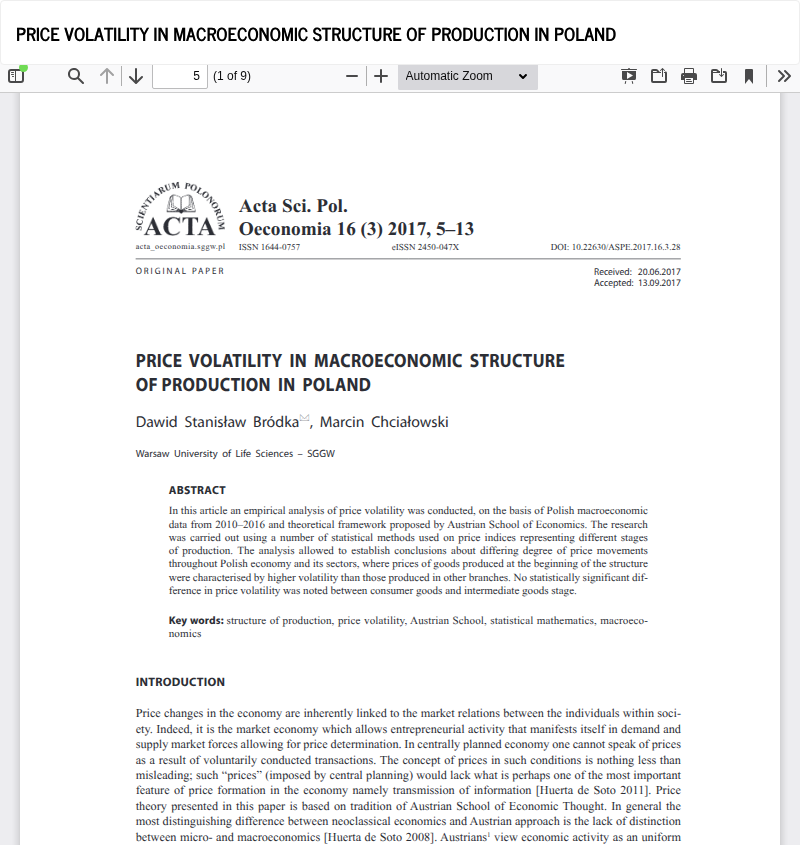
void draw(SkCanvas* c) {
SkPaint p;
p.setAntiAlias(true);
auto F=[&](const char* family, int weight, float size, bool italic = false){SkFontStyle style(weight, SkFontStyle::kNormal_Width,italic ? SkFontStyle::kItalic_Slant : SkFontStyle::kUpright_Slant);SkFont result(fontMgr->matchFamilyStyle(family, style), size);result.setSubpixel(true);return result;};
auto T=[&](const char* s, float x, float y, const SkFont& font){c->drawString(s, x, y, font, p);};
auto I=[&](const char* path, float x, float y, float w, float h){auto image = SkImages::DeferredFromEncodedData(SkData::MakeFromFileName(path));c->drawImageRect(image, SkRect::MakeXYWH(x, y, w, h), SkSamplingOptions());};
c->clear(0xffffffff);
I("1.png",0,61,800,784);
p.setColor(0xffffffff);
c->drawRoundRect(SkRect::MakeXYWH(.5,.5,799,64),3.5,3.5,p);
p.setStroke(true);
p.setStrokeWidth(1);
p.setColor(0xffeeeeee);
c->drawRoundRect(SkRect::MakeXYWH(.5,.5,799,64),3.5,3.5,p);
auto f1 = F("News Cycle",700,18);
p.setStroke(false);
p.setColor(0xff000000);
T("PRICE VOLATILITY IN MACROECONOMIC STRUCTURE OF PRODUCTION IN POLAND",16,41,f1);
}
